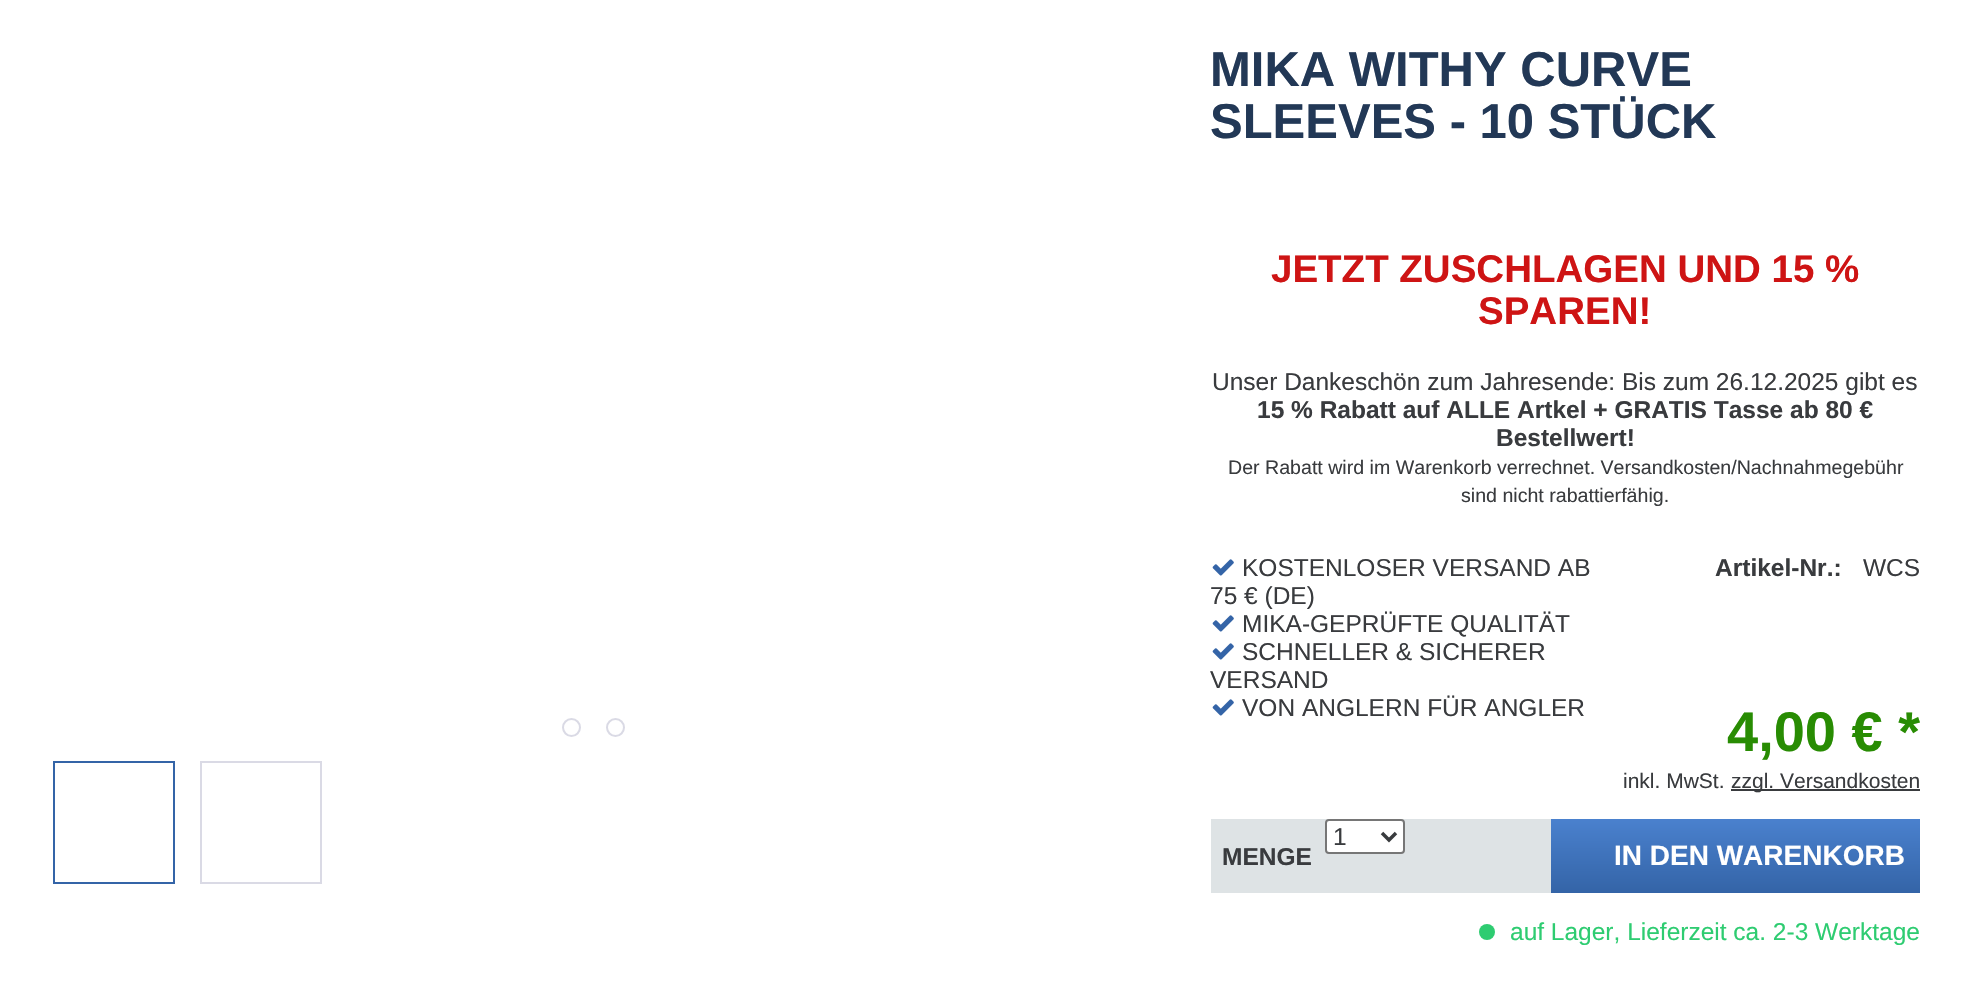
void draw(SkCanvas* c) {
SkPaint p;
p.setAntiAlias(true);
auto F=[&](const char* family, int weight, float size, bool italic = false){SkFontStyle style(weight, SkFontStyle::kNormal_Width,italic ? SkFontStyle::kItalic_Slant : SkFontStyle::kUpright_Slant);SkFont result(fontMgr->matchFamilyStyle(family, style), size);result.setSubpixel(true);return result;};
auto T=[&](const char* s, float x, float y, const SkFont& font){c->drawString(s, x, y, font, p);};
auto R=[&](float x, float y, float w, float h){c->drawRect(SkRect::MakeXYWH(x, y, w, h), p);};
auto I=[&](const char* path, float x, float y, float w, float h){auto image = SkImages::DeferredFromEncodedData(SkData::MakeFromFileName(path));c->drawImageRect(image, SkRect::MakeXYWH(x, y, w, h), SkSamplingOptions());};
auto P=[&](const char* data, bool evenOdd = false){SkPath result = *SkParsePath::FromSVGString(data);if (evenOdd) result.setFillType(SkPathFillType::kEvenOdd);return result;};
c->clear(0xffffffff);
auto f1 = F("Liberation Sans",700,49);
p.setColor(0xff223856);
T("MIKA WITHY CURVE",1210,86,f1);
T("SLEEVES - 10 STÜCK",1210,138,f1);
p.setStroke(true);
p.setStrokeWidth(2);
p.setColor(0xffdadae5);
c->drawCircle(571.5,727.5,8.5,p);
c->drawCircle(615.5,727.5,8.5,p);
p.setColor(0xff3464a7);
c->drawRect(SkRect::MakeXYWH(54,762,120,121),p);
p.setColor(0xffdadae5);
c->drawRect(SkRect::MakeXYWH(201,762,120,121),p);
auto f2 = F("Liberation Sans",700,38.5);
p.setStroke(false);
p.setColor(0xffce1414);
T("JETZT ZUSCHLAGEN UND 15 %",1271,282,f2);
T("SPAREN!",1478,324,f2);
auto f3 = F("Liberation Sans",400,24.5);
p.setColor(0xff393b3e);
T("Unser Dankeschön zum Jahresende: Bis zum 26.12.2025 gibt es",1212,390,f3);
auto f4 = F("Liberation Sans",700,24.5);
T("15 % Rabatt auf ALLE Artkel + GRATIS Tasse ab 80 €",1257,418,f4);
T("Bestellwert!",1496,446,f4);
auto f5 = F("Liberation Sans",400,19.6);
T("Der Rabatt wird im Warenkorb verrechnet. Versandkosten/Nachnahmegebühr",1228,474,f5);
T("sind nicht rabattierfähig.",1461,502,f5);
I("1.png",1212,559,22,17);
T("KOSTENLOSER VERSAND AB",1242,576,f3);
T("75 € (DE)",1210,604,f3);
I("1.png",1212,615,22,17);
T("MIKA-GEPRÜFTE QUALITÄT",1242,632,f3);
I("1.png",1212,643,22,17);
T("SCHNELLER & SICHERER",1242,660,f3);
T("VERSAND",1210,688,f3);
I("1.png",1212,699,22,17);
T("VON ANGLERN FÜR ANGLER",1242,716,f3);
T("Artikel-Nr.:",1715,576,f4);
T("WCS",1863,576,f3);
auto f6 = F("Liberation Sans",700,56);
p.setColor(0xff288c03);
T("4,00 € *",1727,751,f6);
auto f7 = F("Liberation Sans",400,21);
p.setColor(0xff393b3e);
T("inkl. MwSt.",1623,788,f7);
R(1731,789,189,2);
T("zzgl. Versandkosten",1731,788,f7);
p.setColor(0xffdee3e5);
R(1211,819,340,74);
p.setColor(0xffffffff);
c->drawRoundRect(SkRect::MakeXYWH(1326,820,78,33),3,3,p);
p.setStroke(true);
p.setColor(0xff767676);
c->drawRoundRect(SkRect::MakeXYWH(1326,820,78,33),3,3,p);
p.setStrokeWidth(3.5);
p.setColor(0xff393b3e);
c->drawPath(P("M1382 833l7 7l7-7"),p);
p.setStroke(false);
T("1",1333,845,f3);
T("MENGE",1222,865,f4);
{
const SkColor colors[] = {0xff4a81ce,0xff3464a7};
const float stops[] = {0,1};
const SkPoint ends[] = {{1735,819}, {1735,893}};
p.setShader(SkGradientShader::MakeLinear(ends, colors, stops, 2, SkTileMode::kClamp));
p.setAlpha(255);
}
R(1551,819,369,74);
auto f8 = F("Liberation Sans",700,28);
p.setShader(nullptr);
p.setColor(0xffffffff);
T("IN DEN WARENKORB",1614,865,f8);
p.setColor(0xff2ecc71);
c->drawCircle(1487,932,8,p);
T("auf Lager, Lieferzeit ca. 2-3 Werktage",1510,940,f3);
}
